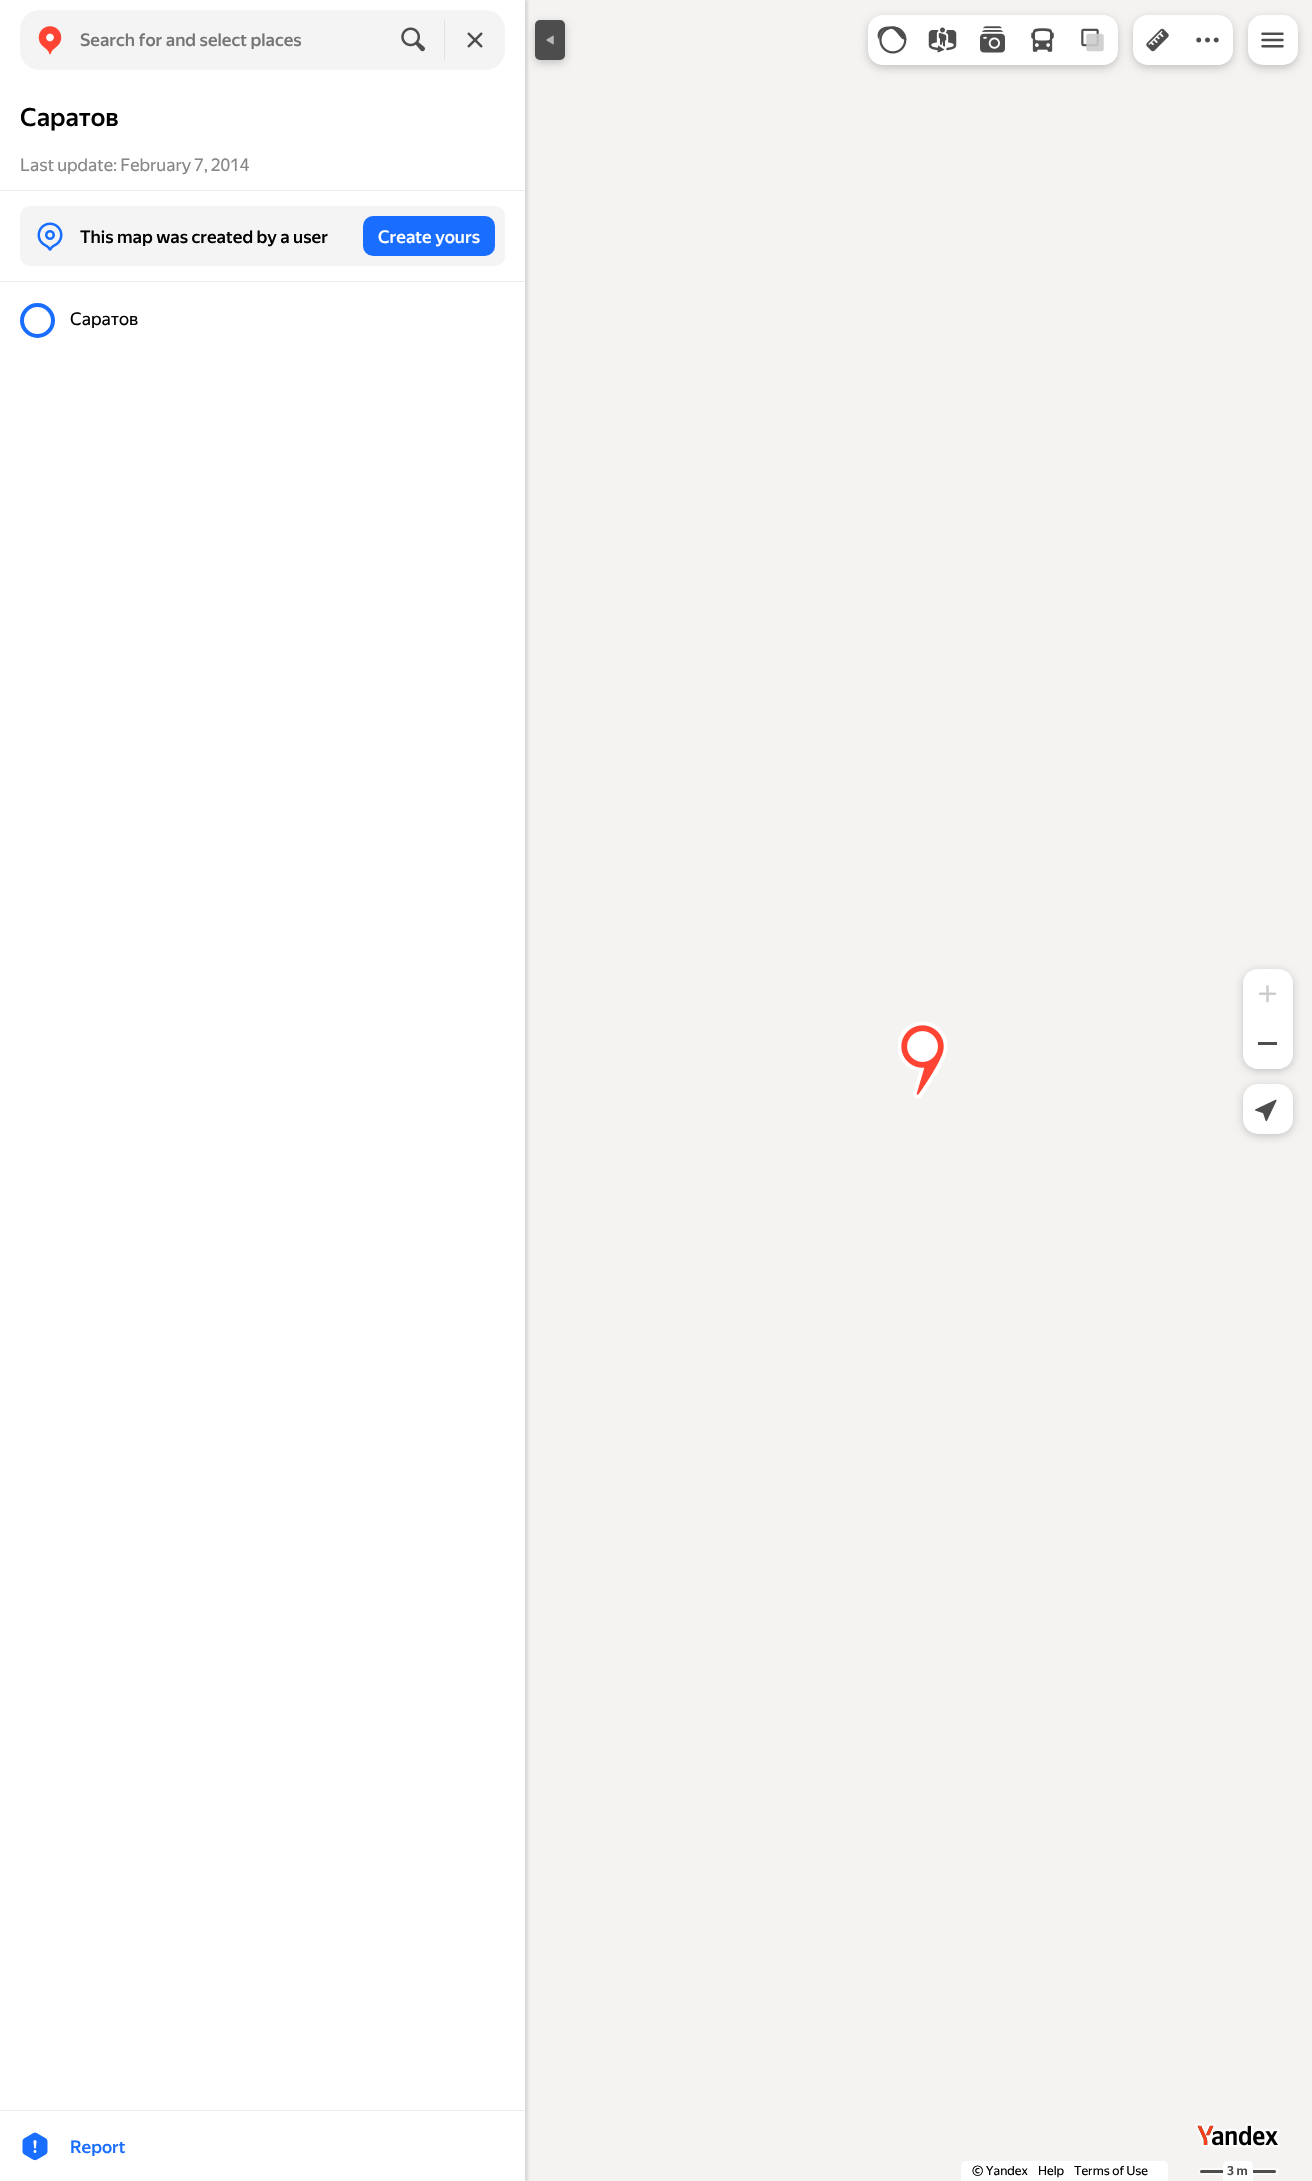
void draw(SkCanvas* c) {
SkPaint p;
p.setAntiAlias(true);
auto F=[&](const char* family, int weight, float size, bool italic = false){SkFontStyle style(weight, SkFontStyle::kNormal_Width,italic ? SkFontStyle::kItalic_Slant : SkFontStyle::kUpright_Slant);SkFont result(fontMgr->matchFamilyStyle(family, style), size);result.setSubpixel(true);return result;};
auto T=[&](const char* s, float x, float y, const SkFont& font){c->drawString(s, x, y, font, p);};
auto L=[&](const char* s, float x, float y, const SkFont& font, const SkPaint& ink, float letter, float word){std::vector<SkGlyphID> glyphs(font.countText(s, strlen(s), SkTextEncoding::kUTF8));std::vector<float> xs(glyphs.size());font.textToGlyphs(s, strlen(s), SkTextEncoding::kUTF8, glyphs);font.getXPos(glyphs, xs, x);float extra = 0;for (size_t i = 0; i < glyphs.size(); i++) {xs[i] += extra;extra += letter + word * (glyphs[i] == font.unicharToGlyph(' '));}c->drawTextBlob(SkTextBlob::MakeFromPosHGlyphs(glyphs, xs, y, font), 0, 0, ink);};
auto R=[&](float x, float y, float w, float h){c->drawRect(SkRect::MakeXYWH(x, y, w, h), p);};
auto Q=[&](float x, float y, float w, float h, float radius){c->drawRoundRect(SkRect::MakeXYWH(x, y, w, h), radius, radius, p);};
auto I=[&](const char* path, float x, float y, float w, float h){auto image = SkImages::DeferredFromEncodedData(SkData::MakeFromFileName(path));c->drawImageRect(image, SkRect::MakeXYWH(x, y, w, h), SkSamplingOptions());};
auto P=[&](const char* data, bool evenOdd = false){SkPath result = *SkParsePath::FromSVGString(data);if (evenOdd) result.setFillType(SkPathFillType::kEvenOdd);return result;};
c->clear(0xfff5f3f1);
p.setColor(0x1a000000);
p.setMaskFilter(SkMaskFilter::MakeBlur(kNormal_SkBlurStyle, 1));
c->drawRect(SkRect::MakeXYWH(3,0,525,2181),p);
p.setMaskFilter(nullptr);
p.setColor(0x33000000);
p.setMaskFilter(SkMaskFilter::MakeBlur(kNormal_SkBlurStyle, 4));
c->drawRoundRect(SkRect::MakeXYWH(535,23,30,40),5,5,p);
p.setMaskFilter(nullptr);
p.setColor(0xffffffff);
R(0,0,525,2181);
p.setColor(0xfff4f4f4);
Q(20,10,485,60,20);
I("1.png",38,26,24,29);
auto f1 = F("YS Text",500,17.5);
p.setColor(0xff757575);
T("Search for and select places",80,46,f1);
I("2.png",401,27,24,25);
p.setColor(0xffe0e0e0);
R(444,20,1,40);
I("3.png",467,32,16,16);
p.setColor(0x33000000);
p.setMaskFilter(SkMaskFilter::MakeBlur(kNormal_SkBlurStyle, 4));
c->drawRoundRect(SkRect::MakeXYWH(868,18,250,50),15,15,p);
p.setMaskFilter(nullptr);
p.setColor(0xffffffff);
c->drawPath(P("M883 15h35v50h-35c-8.5 0-15-6.5-15-15v-20c0-8.5 6.5-15 15-15z"),p);
I("4.png",877,26,30,28);
R(918,15,150,50);
I("5.png",928,27,29,26);
c->drawPath(P("M1068 15h35c8.5 0 15 6.5 15 15v20c0 8.5-6.5 15-15 15h-35z"),p);
I("6.png",1081,28,23,24);
I("7.png",980,26,25,27);
I("8.png",1031,28,23,24);
p.setColor(0x33000000);
p.setMaskFilter(SkMaskFilter::MakeBlur(kNormal_SkBlurStyle, 4));
c->drawRoundRect(SkRect::MakeXYWH(1133,18,100,50),15,15,p);
p.setMaskFilter(nullptr);
p.setColor(0xffffffff);
c->drawPath(P("M1148 15h35v50h-35c-8.5 0-15-6.5-15-15v-20c0-8.5 6.5-15 15-15z"),p);
I("9.png",1146,28,23,24);
c->drawPath(P("M1183 15h35c8.5 0 15 6.5 15 15v20c0 8.5-6.5 15-15 15h-35z"),p);
I("10.png",1196,37,23,6);
p.setColor(0x33000000);
p.setMaskFilter(SkMaskFilter::MakeBlur(kNormal_SkBlurStyle, 4));
c->drawRoundRect(SkRect::MakeXYWH(1248,18,50,50),15,15,p);
p.setMaskFilter(nullptr);
p.setColor(0xffffffff);
Q(1248,15,50,50,15);
I("11.png",1261,32,23,16);
p.setColor(0x33000000);
p.setMaskFilter(SkMaskFilter::MakeBlur(kNormal_SkBlurStyle, 4));
c->drawRoundRect(SkRect::MakeXYWH(1243,971,50,100),15,15,p);
p.setMaskFilter(nullptr);
p.setColor(0xffffffff);
c->drawPath(P("M1258 969h20c8.5 0 15 6.5 15 15v35h-50v-35c0-8.5 6.5-15 15-15z"),p);
I("12.png",1258,985,19,18);
c->drawPath(P("M1243 1019h50v35c0 8.5-6.5 15-15 15h-20c-8.5 0-15-6.5-15-15z"),p);
p.setColor(0xff4d4d4d);
R(1258,1042,19,3);
p.setColor(0x33000000);
p.setMaskFilter(SkMaskFilter::MakeBlur(kNormal_SkBlurStyle, 4));
c->drawRoundRect(SkRect::MakeXYWH(1243,1086,50,50),15,15,p);
p.setMaskFilter(nullptr);
p.setColor(0xffffffff);
Q(1243,1084,50,50,15);
I("13.png",1255,1099,22,23);
p.setColor(0xff4d4d4d);
Q(535,20,30,40,5);
I("14.png",546,35,8,10);
auto f2 = F("YS Text",500,25);
p.setColor(0xff000000);
T("Саратов",20,126,f2);
p.setColor(0xffebebeb);
R(0,190,525,1);
auto f3 = F("YS Text",400,17.5);
p.setColor(0xff878787);
L("Last update: February 7, 2014",20,171,f3,p,0,-.5);
p.setColor(0xffebebeb);
R(0,281,525,1);
p.setColor(0xfff4f4f4);
Q(20,206,485,60,10);
I("15.png",37,222,26,29);
p.setColor(0xff000000);
T("This map was created by a user",80,243,f1);
p.setColor(0xff196dff);
Q(363,216,132,40,10);
p.setColor(0xffffffff);
T("Create yours",378,243,f1);
p.setStroke(true);
p.setStrokeWidth(4);
p.setColor(0xff196dff);
c->drawCircle(37.5,320.5,15.5,p);
p.setStroke(false);
p.setColor(0xff000000);
T("Саратов",70,325,f3);
p.setColor(0xffebebeb);
R(0,2110,525,1);
I("16.png",22,2132,26,29);
p.setColor(0xff196dff);
T("Report",70,2153,f1);
I("17.png",1195,2123,86,25);
p.setColor(0xffffffff);
c->drawPath(P("M966 2161h197c3 0 5 2 5 5v15h-207v-15c0-3 2-5 5-5z"),p);
auto f4 = F("YS Text",400,12.5);
p.setColor(0xff000000);
T("© Yandex",972,2175,f4);
T("Help",1038,2175,f4);
T("Terms of Use",1074,2175,f4);
p.setColor(0xfffbfaf9);
Q(1198,2168,81,7,3.5);
p.setColor(0xff4d4d4d);
Q(1200,2170,76,3,1.5);
p.setColor(0xffffffff);
c->drawPath(P("M1228 2161h20c3 0 5 2 5 5v15h-30v-15c0-3 2-5 5-5z"),p);
auto f5 = F("YS Text",700,12.5);
p.setColor(0xff4d4d4d);
T("3 m",1227,2175,f5);
I("18.png",898,1021,50,78);
}
